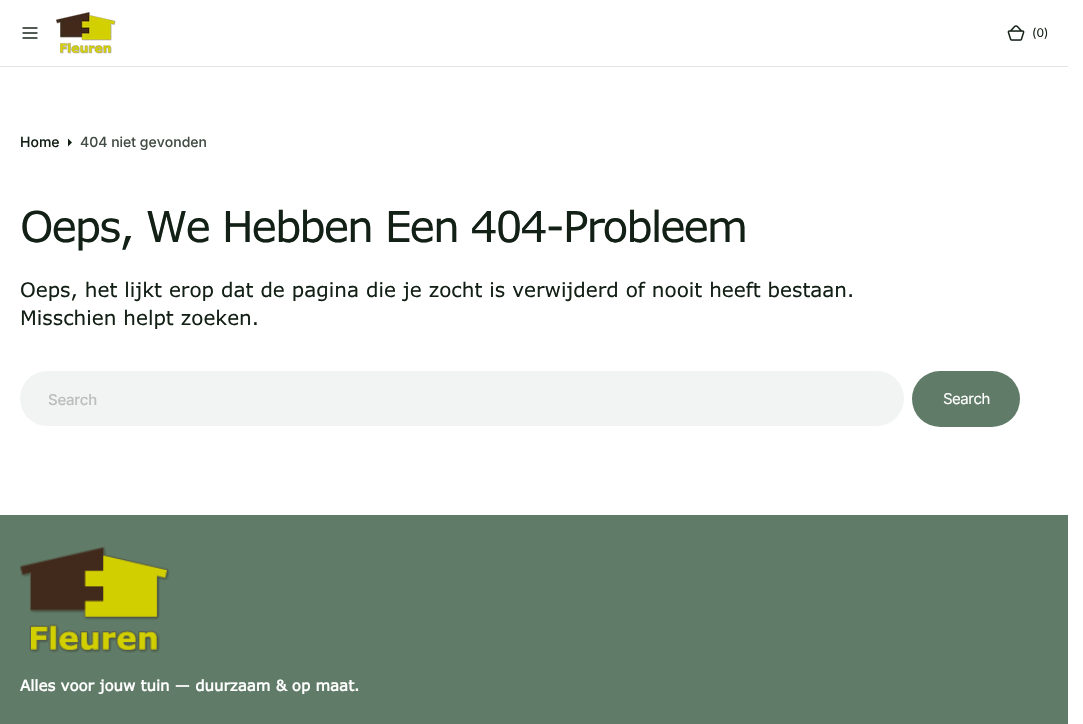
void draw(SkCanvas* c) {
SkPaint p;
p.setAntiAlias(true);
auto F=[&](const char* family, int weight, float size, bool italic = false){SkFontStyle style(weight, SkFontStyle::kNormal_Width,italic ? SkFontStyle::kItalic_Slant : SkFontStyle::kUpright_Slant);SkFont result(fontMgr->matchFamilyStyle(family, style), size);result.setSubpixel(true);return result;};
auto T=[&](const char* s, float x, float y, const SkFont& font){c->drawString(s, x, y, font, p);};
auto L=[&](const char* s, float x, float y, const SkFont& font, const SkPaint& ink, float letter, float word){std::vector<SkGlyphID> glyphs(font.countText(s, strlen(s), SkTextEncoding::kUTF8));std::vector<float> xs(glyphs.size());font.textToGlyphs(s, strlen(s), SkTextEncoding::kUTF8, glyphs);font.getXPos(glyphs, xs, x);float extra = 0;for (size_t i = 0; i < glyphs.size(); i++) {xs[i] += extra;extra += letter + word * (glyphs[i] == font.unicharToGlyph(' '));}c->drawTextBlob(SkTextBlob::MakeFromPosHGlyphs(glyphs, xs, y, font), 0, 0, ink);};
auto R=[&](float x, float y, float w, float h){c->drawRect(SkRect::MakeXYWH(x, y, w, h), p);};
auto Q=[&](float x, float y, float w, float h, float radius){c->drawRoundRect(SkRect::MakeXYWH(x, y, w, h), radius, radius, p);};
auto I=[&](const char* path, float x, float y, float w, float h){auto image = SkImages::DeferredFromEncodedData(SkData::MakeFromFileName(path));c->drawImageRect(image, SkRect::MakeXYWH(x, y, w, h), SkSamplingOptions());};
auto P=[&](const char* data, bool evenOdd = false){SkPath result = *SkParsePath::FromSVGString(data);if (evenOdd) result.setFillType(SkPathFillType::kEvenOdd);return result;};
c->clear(0xffffffff);
p.setColor(0xffe2e5e8);
R(0,66,1068,1);
I("1.png",22,27,16,12);
I("2.png",56,12,60,42);
I("3.png",1007,25,18,16);
auto f1 = F("Inter",400,12);
p.setColor(0xff132016);
T("(0)",1032,37,f1);
auto f2 = F("Inter",500,14);
T("Home",20,147,f2);
c->drawPath(P("M72 142.5l-4 4v-8z"),p);
p.setColor(0xff424d45);
T("404 niet gevonden",80,147,f2);
auto f3 = F("Verdana",400,42.6);
p.setColor(0xff132016);
L("Oeps, We Hebben Een 404-Probleem",20,242,f3,p,-2.1,0);
auto f4 = F("Verdana",400,20);
T("Oeps, het lijkt erop dat de pagina die je zocht is verwijderd of nooit heeft bestaan.",20,297,f4);
T("Misschien helpt zoeken.",20,325,f4);
p.setColor(0xfff1f4f3);
Q(20,371,884,55,27.5);
auto f5 = F("Inter",500,15);
p.setColor(0xffbabfbc);
L("Search",48,405,f5,p,-.25,0);
p.setColor(0xff607b67);
Q(912,371,108,56,28);
auto f6 = F("Inter",400,15);
p.setColor(0xffffffff);
L("Search",943,404,f6,p,-.5,0);
p.setColor(0xff607b67);
R(0,515,1068,209);
I("4.png",20,547,150,106);
auto f7 = F("Verdana",700,15);
p.setColor(0xffffffff);
T("Alles voor jouw tuin — duurzaam & op maat.",20,691,f7);
}
